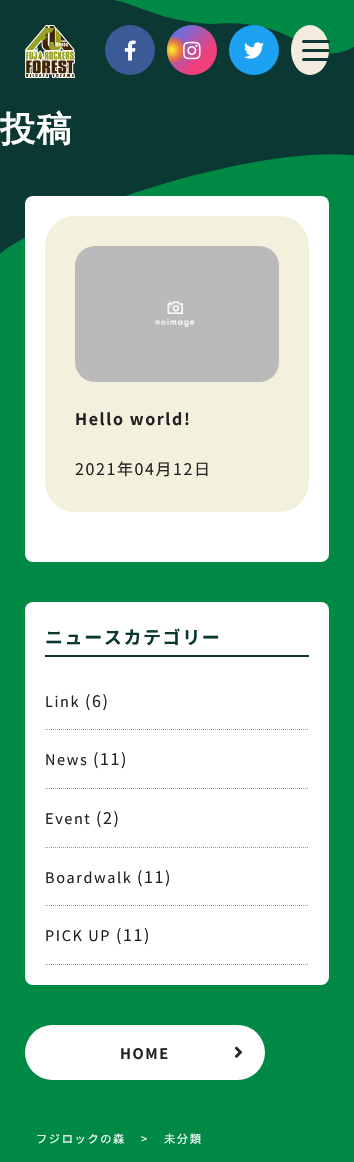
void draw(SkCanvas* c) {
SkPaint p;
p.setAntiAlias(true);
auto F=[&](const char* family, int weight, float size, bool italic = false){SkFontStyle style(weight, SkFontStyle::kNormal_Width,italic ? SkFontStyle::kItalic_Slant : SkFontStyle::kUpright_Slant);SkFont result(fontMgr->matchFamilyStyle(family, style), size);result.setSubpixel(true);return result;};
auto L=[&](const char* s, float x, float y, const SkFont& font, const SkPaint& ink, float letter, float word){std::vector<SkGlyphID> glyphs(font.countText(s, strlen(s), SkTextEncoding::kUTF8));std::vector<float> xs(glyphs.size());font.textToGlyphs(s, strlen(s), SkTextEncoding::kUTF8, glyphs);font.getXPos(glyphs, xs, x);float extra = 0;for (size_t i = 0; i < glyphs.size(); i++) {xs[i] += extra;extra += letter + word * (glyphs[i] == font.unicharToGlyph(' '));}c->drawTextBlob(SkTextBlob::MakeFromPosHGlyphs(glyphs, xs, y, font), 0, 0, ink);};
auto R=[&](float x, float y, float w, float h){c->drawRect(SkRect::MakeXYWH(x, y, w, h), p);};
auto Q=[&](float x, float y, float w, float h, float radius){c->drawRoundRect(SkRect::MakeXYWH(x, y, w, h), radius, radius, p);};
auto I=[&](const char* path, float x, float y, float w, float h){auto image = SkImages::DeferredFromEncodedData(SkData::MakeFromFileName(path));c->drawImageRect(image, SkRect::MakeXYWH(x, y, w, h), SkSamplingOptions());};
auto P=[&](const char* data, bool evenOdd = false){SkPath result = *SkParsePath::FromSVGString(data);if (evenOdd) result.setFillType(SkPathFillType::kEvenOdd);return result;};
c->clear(0xff008945);
p.setColor(0xff0b3832);
c->drawPath(P("M0 0v254c47-41 333-141 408-81c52 41 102 15 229 4v-177z"),p);
p.setColor(0xff008945);
c->drawPath(P("M114 0c25 5 47 21 96 24c96-8 94 48 144 23v-47z"),p);
I("1.png",25,25,50,53);
p.setColor(0xff3c5998);
c->drawCircle(130,50,25,p);
I("2.png",124,40,12,21);
{
const SkColor colors[] = {0xff427eff,0xfff13f79};
const float stops[] = {0,.7};
const SkPoint ends[] = {{167,25}, {217,75}};
p.setShader(SkGradientShader::MakeLinear(ends, colors, stops, 2, SkTileMode::kClamp));
p.setAlpha(255);
}
c->drawCircle(192,50,25,p);
c->save();
c->clipPath(P("M192 25c14 0 25 11 25 25c0 14-11 25-25 25c-14 0-25-11-25-25c0-14 11-25 25-25z"),true);
{
const SkColor colors[] = {0xffffdb2c,0xa6ff6922,0x00ff6922};
const float stops[] = {.1,.55,.7};
p.setShader(SkGradientShader::MakeRadial({172,50}, 20, colors, stops, 3, SkTileMode::kClamp));
p.setAlpha(255);
}
R(167,36,19,28);
c->restore();
I("3.png",183,41,18,19);
p.setShader(nullptr);
p.setColor(0xff1da1f2);
c->drawCircle(254,50,25,p);
I("4.png",244,42,20,17);
p.setColor(0xfff4ebdf);
c->drawOval(SkRect::MakeXYWH(291,25,38,50),p);
p.setColor(0xff0b3832);
Q(302,40,28,3,1.5);
Q(302,49,28,3,1.5);
Q(302,58,28,3,1.5);
auto f1 = F("WenQuanYi Zen Hei",700,35);
p.setColor(0xffffffff);
L("投稿",0,141,f1,p,1.6,0);
Q(25,196,304,366,8);
p.setColor(0xfff3f1dd);
Q(45,216,264,296,30);
I("5.png",75,246,204,136);
auto f2 = F("Noto Sans JP",700,16);
p.setColor(0xff222222);
L("Hello world!",75,425,f2,p,1.6,0);
auto f3 = F("Noto Sans JP",400,16);
L("2021年04月12日",75,475,f3,p,1.6,0);
p.setColor(0xffffffff);
Q(25,602,304,383,8);
p.setColor(0xff0b3832);
R(45,655,264,2);
auto f4 = F("Noto Sans JP",700,18);
L("ニュースカテゴリー",45,644,f4,p,1.6,0);
p.setStroke(true);
p.setStrokeWidth(1);
p.setColor(0xff999999);
p.setPathEffect(SkDashPathEffect::Make({{1,1}}, 0));
c->drawPath(P("M45 729.5h264"),p);
p.setPathEffect(nullptr);
auto f5 = F("Noto Sans JP",400,14.5);
p.setStroke(false);
p.setColor(0xff222222);
L("Link",45,707,f5,p,1.6,0);
L("(6)",85,707,f3,p,1.6,0);
p.setStroke(true);
p.setColor(0xff999999);
p.setPathEffect(SkDashPathEffect::Make({{1,1}}, 0));
c->drawPath(P("M45 788.5h264"),p);
p.setPathEffect(nullptr);
p.setStroke(false);
p.setColor(0xff222222);
L("News",45,765,f5,p,1.6,0);
L("(11)",93,765,f3,p,1.6,0);
p.setStroke(true);
p.setColor(0xff999999);
p.setPathEffect(SkDashPathEffect::Make({{1,1}}, 0));
c->drawPath(P("M45 847.5h264"),p);
p.setPathEffect(nullptr);
p.setStroke(false);
p.setColor(0xff222222);
L("Event",45,824,f5,p,1.6,0);
L("(2)",96,824,f3,p,1.6,0);
p.setStroke(true);
p.setColor(0xff999999);
p.setPathEffect(SkDashPathEffect::Make({{1,1}}, 0));
c->drawPath(P("M45 905.5h264"),p);
p.setPathEffect(nullptr);
p.setStroke(false);
p.setColor(0xff222222);
L("Boardwalk",45,883,f5,p,1.6,0);
L("(11)",137,883,f3,p,1.6,0);
p.setStroke(true);
p.setColor(0xff999999);
p.setPathEffect(SkDashPathEffect::Make({{1,1}}, 0));
c->drawPath(P("M45 964.5h264"),p);
p.setPathEffect(nullptr);
p.setStroke(false);
p.setColor(0xff222222);
L("PICK UP",45,941,f5,p,1.6,0);
L("(11)",116,941,f3,p,1.6,0);
p.setColor(0xffffffff);
Q(25,1025,240,55,27.5);
auto f6 = F("Noto Sans JP",700,14.5);
p.setColor(0xff222222);
L("HOME",120,1059,f6,p,1.6,0);
I("6.png",234,1046,9,12);
auto f7 = F("Noto Sans JP",400,11.25);
p.setColor(0xffffffff);
L("フジロックの森",36,1143,f7,p,1.6,0);
L(">",141,1143,f7,p,1.6,0);
L("未分類",164,1143,f7,p,1.6,0);
}
